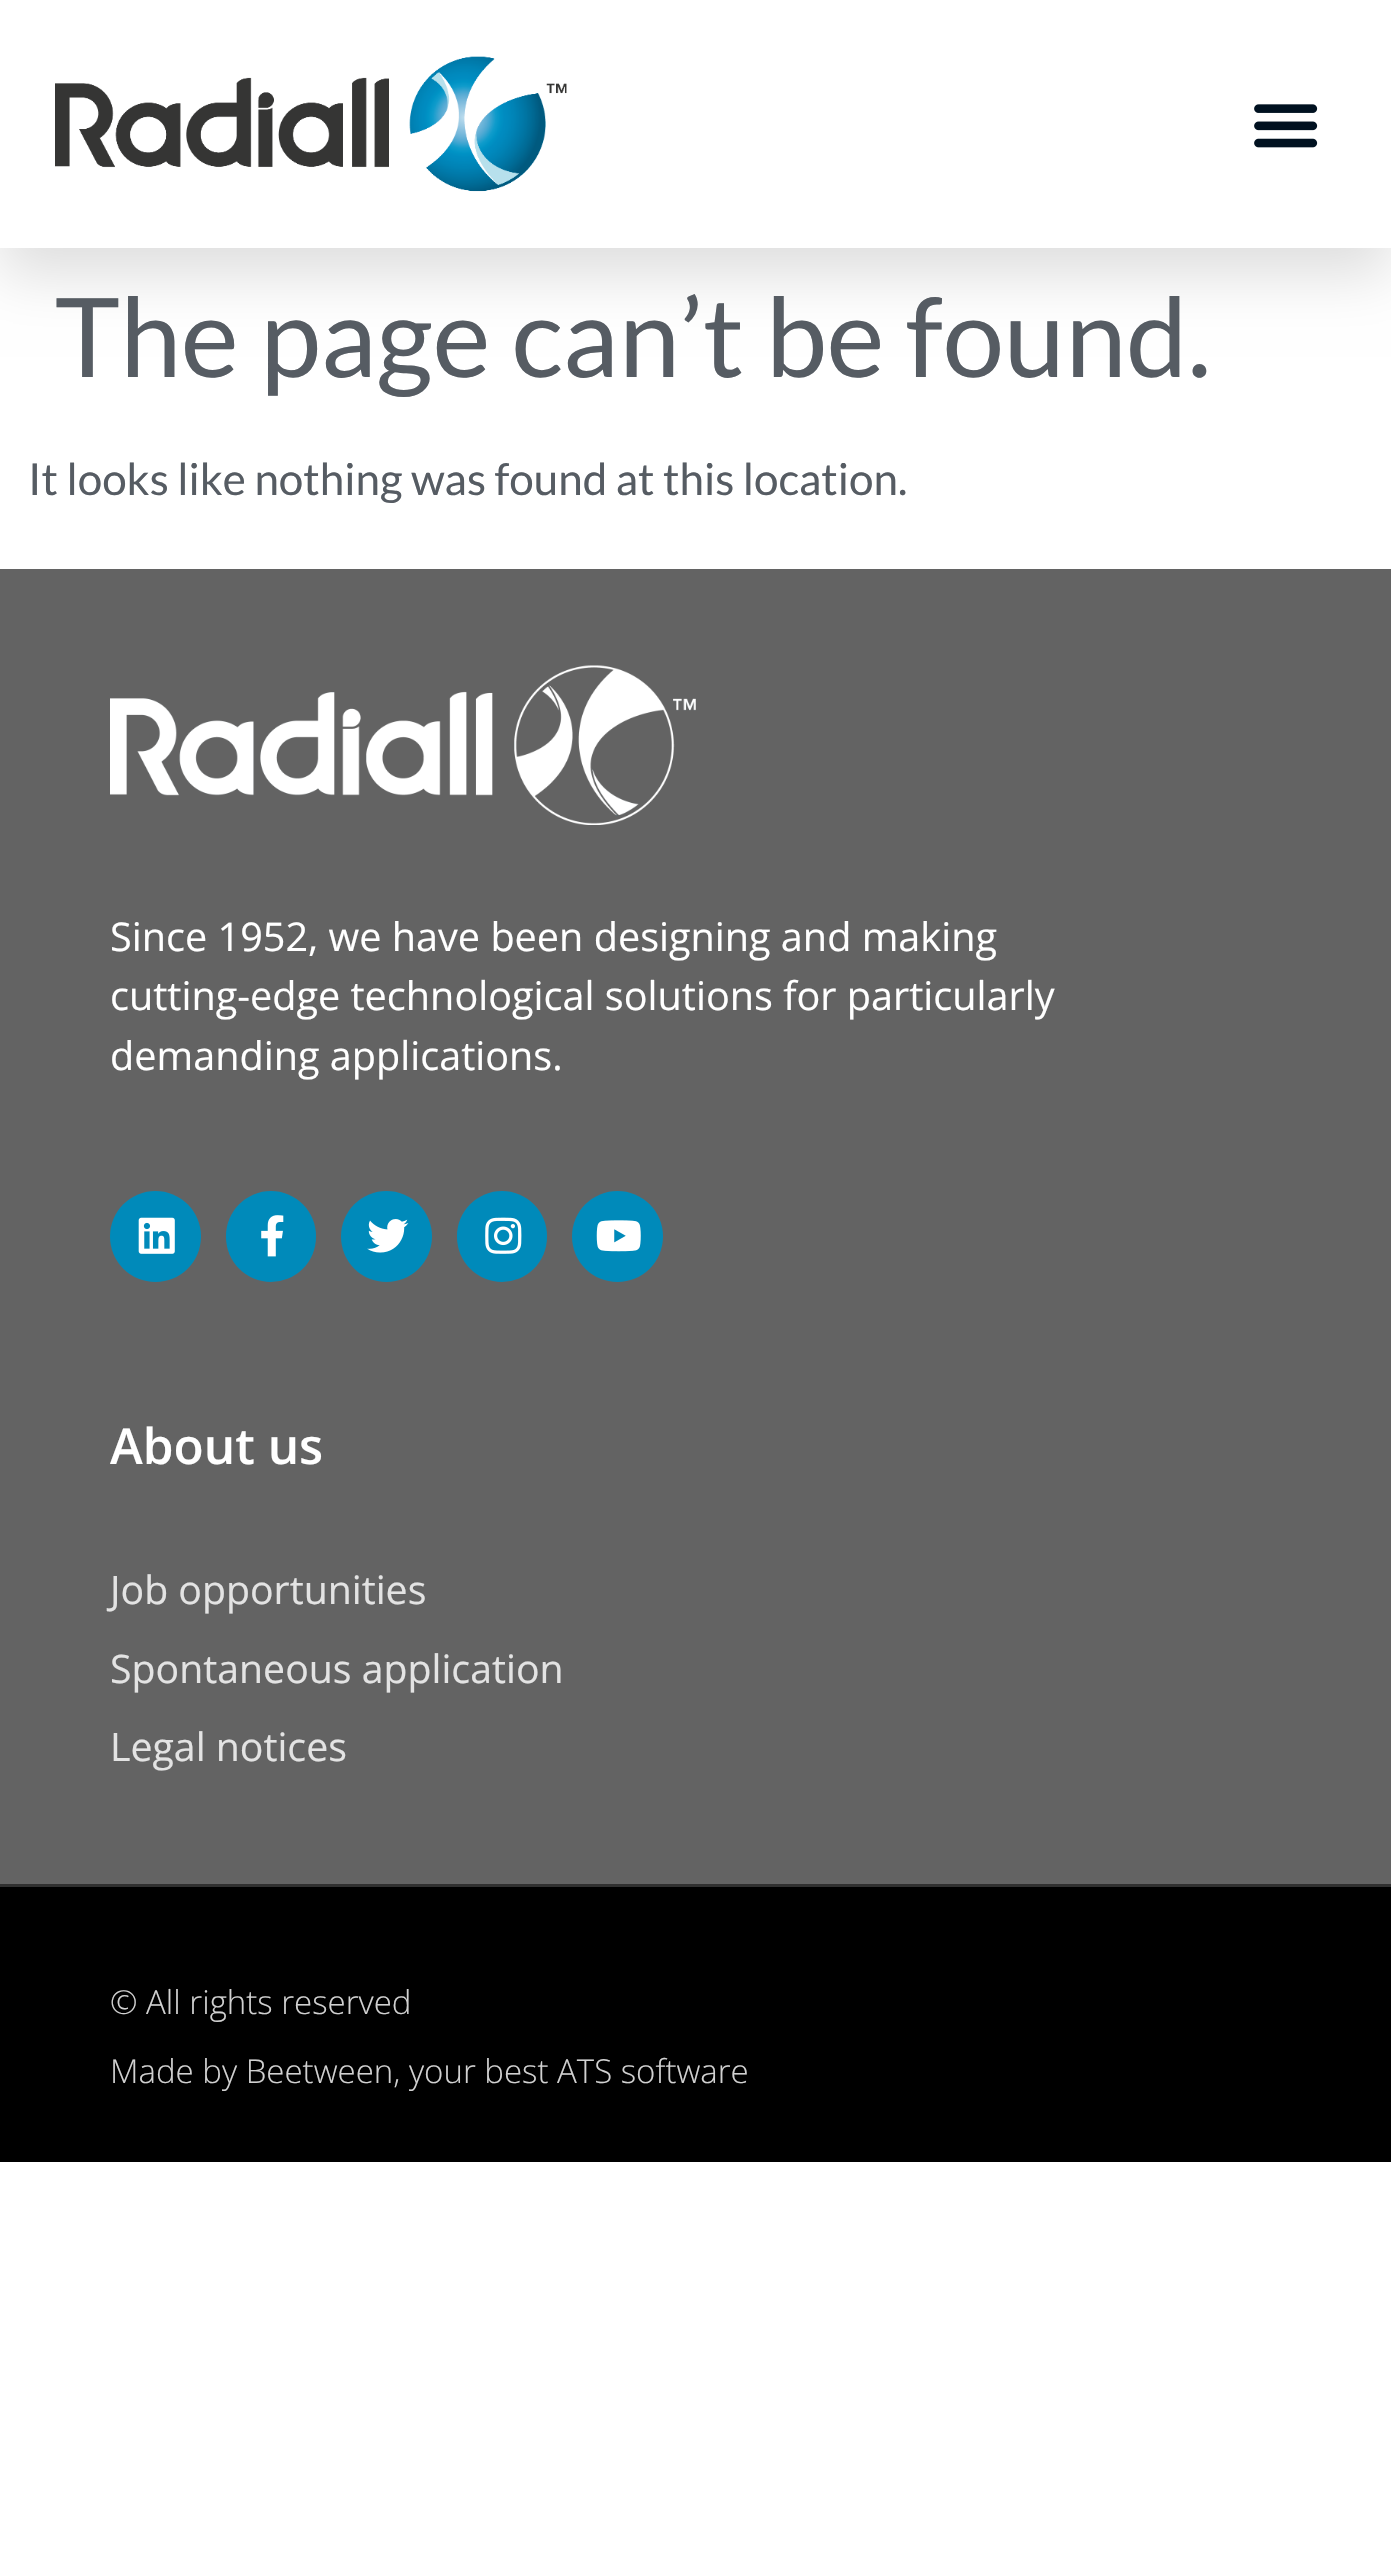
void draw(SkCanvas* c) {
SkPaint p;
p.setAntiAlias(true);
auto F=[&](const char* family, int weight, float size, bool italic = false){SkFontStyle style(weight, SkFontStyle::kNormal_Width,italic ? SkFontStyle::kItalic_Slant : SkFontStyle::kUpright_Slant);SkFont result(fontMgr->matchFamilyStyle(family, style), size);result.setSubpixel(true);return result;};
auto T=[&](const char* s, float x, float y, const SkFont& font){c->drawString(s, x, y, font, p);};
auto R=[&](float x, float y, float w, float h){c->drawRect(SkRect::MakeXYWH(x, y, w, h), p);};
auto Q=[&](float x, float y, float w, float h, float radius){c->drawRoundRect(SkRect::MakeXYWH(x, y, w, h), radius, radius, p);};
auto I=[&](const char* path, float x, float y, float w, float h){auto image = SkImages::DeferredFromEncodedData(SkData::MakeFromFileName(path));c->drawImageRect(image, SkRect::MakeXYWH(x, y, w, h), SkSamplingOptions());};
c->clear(0xffffffff);
p.setColor(0x21000000);
p.setMaskFilter(SkMaskFilter::MakeBlur(kNormal_SkBlurStyle, 27.5));
c->drawRect(SkRect::MakeXYWH(0,28,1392,247),p);
p.setMaskFilter(nullptr);
p.setColor(0xffffffff);
R(0,0,1391,248);
I("1.png",55,56,512,136);
I("2.png",1254,104,64,44);
auto f1 = F("Lato",400,110);
p.setColor(0xff565c63);
T("The page can’t be found.",55,377,f1);
auto f2 = F("Lato",400,44);
T("It looks like nothing was found at this location.",28,495,f2);
p.setColor(0xff636363);
R(0,569,1391,1315);
I("3.png",110,665,586,160);
auto f3 = F("Open Sans",400,39.6);
p.setColor(0xffffffff);
T("Since 1952, we have been designing and making",110,951,f3);
T("cutting-edge technological solutions for particularly",110,1010,f3);
T("demanding applications.",110,1070,f3);
p.setColor(0xff008aba);
c->drawCircle(155.5,1236.5,45.5,p);
I("4.png",138,1217,37,37);
Q(226,1191,90,91,45);
I("5.png",261,1215,23,42);
c->drawCircle(386.5,1236.5,45.5,p);
I("6.png",367,1219,42,34);
Q(457,1191,90,91,45);
I("7.png",485,1217,37,37);
c->drawCircle(617.5,1236.5,45.5,p);
I("8.png",596,1220,45,32);
auto f4 = F("Open Sans",600,49.5);
p.setColor(0xffffffff);
T("About us",110,1464,f4);
auto f5 = F("Open Sans",400,39.25);
p.setColor(0xffe3e3e3);
T("Job opportunities",110,1604,f5);
T("Spontaneous application",110,1683,f5);
T("Legal notices",110,1761,f5);
p.setColor(0xff000000);
R(0,1887,1391,275);
p.setColor(0xff303030);
R(0,1884,1391,3);
auto f6 = F("Open Sans",300,33);
p.setColor(0xffd1d1d1);
T("© All rights reserved",110,2014,f6);
T("Made by Beetween, your best ATS software",110,2083,f6);
}
